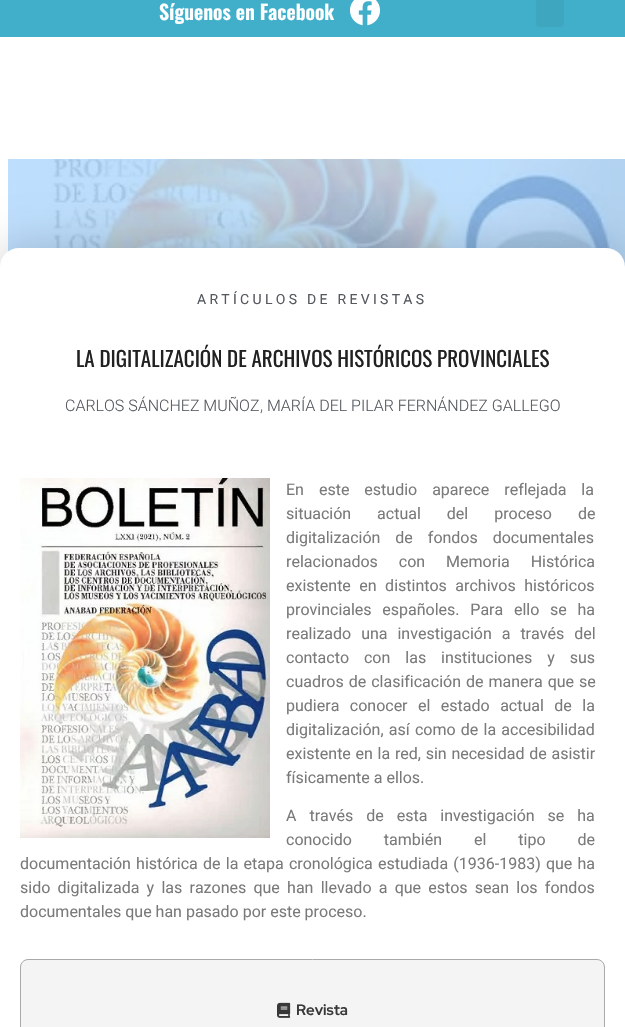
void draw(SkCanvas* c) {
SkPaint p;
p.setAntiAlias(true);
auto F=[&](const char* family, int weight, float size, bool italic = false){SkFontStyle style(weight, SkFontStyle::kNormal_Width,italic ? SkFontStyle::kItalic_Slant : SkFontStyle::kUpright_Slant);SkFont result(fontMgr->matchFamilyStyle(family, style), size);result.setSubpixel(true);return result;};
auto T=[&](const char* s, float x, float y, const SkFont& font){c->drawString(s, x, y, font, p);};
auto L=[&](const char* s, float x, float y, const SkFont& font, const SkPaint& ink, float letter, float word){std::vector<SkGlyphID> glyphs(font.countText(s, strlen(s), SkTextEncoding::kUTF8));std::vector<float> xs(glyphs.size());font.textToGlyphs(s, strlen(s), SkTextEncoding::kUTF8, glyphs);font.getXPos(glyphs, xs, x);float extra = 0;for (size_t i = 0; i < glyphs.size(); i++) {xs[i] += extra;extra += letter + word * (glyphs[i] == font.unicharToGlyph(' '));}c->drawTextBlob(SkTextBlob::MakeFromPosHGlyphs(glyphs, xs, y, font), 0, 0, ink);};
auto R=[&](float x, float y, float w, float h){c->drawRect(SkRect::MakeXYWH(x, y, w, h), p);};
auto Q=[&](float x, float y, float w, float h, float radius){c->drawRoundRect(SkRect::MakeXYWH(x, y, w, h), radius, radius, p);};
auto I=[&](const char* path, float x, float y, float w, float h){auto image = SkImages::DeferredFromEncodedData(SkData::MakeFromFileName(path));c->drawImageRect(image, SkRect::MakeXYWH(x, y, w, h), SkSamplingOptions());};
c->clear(0xffffffff);
p.setColor(0xff42afca);
R(0,0,625,37);
auto f1 = F("Oswald",600,20);
p.setColor(0xffffffff);
T("Síguenos en Facebook",159,20,f1);
I("1.png",350,0,30,26);
p.setColor(0xff3fa6c0);
Q(536,-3,28,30,3);
I("2.png",8,159,617,108);
p.setColor(0x30000000);
p.setMaskFilter(SkMaskFilter::MakeBlur(kNormal_SkBlurStyle, 23));
c->drawRoundRect(SkRect::MakeXYWH(-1,247,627,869),20,20,p);
p.setMaskFilter(nullptr);
p.setColor(0xffffffff);
Q(0,248,625,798,19);
auto f2 = F("Roboto",400,14);
p.setColor(0xff54595f);
L("ARTÍCULOS DE REVISTAS",197,304,f2,p,3.3,0);
auto f3 = F("Oswald",400,21);
p.setColor(0xff212121);
T("LA DIGITALIZACIÓN DE ARCHIVOS HISTÓRICOS PROVINCIALES",76,367,f3);
auto f4 = F("Roboto",300,16);
p.setColor(0xff54595f);
T("CARLOS SÁNCHEZ MUÑOZ",65,411,f4);
p.setColor(0xff606060);
T(",",260,411,f4);
p.setColor(0xff54595f);
T("MARÍA DEL PILAR FERNÁNDEZ GALLEGO",267,411,f4);
I("3.png",20,478,250,360);
auto f5 = F("Roboto",400,16);
p.setColor(0xff7a7a7a);
L("En este estudio aparece reflejada la",286,495,f5,p,0,11);
L("situación actual del proceso de",286,519,f5,p,0,22);
L("digitalización de fondos documentales",286,543,f5,p,0,11);
L("relacionados con Memoria Histórica",286,567,f5,p,0,17);
L("existente en distintos archivos históricos",286,591,f5,p,0,4.5);
L("provinciales españoles. Para ello se ha",286,615,f5,p,0,6.75);
L("realizado una investigación a través del",286,639,f5,p,0,6);
L("contacto con las instituciones y sus",286,663,f5,p,0,11);
L("cuadros de clasificación de manera que se",286,687,f5,p,0,1);
L("pudiera conocer el estado actual de la",286,711,f5,p,0,6.5);
L("digitalización, así como de la accesibilidad",286,735,f5,p,0,1.25);
L("existente en la red, sin necesidad de asistir",286,759,f5,p,0,.75);
T("físicamente a ellos.",286,783,f5);
L("A través de esta investigación se ha",286,821,f5,p,0,9);
L("conocido también el tipo de",286,845,f5,p,0,28);
L("documentación histórica de la etapa cronológica estudiada (1936-1983) que ha",20,869,f5,p,0,1.25);
L("sido digitalizada y las razones que han llevado a que estos sean los fondos",20,893,f5,p,0,3.25);
T("documentales que han pasado por este proceso.",20,917,f5);
p.setColor(0xfff4f4f4);
c->drawRoundRect(SkRect::MakeXYWH(20.5,959.5,584,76),7.5,7.5,p);
p.setStroke(true);
p.setStrokeWidth(1);
p.setColor(0xffa9a9a9);
c->drawRoundRect(SkRect::MakeXYWH(20.5,959.5,584,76),7.5,7.5,p);
I("4.png",277,1002,14,16);
auto f6 = F("Red Hat Display",700,15);
p.setStroke(false);
p.setColor(0xff383838);
T("Revista",296,1015,f6);
}
